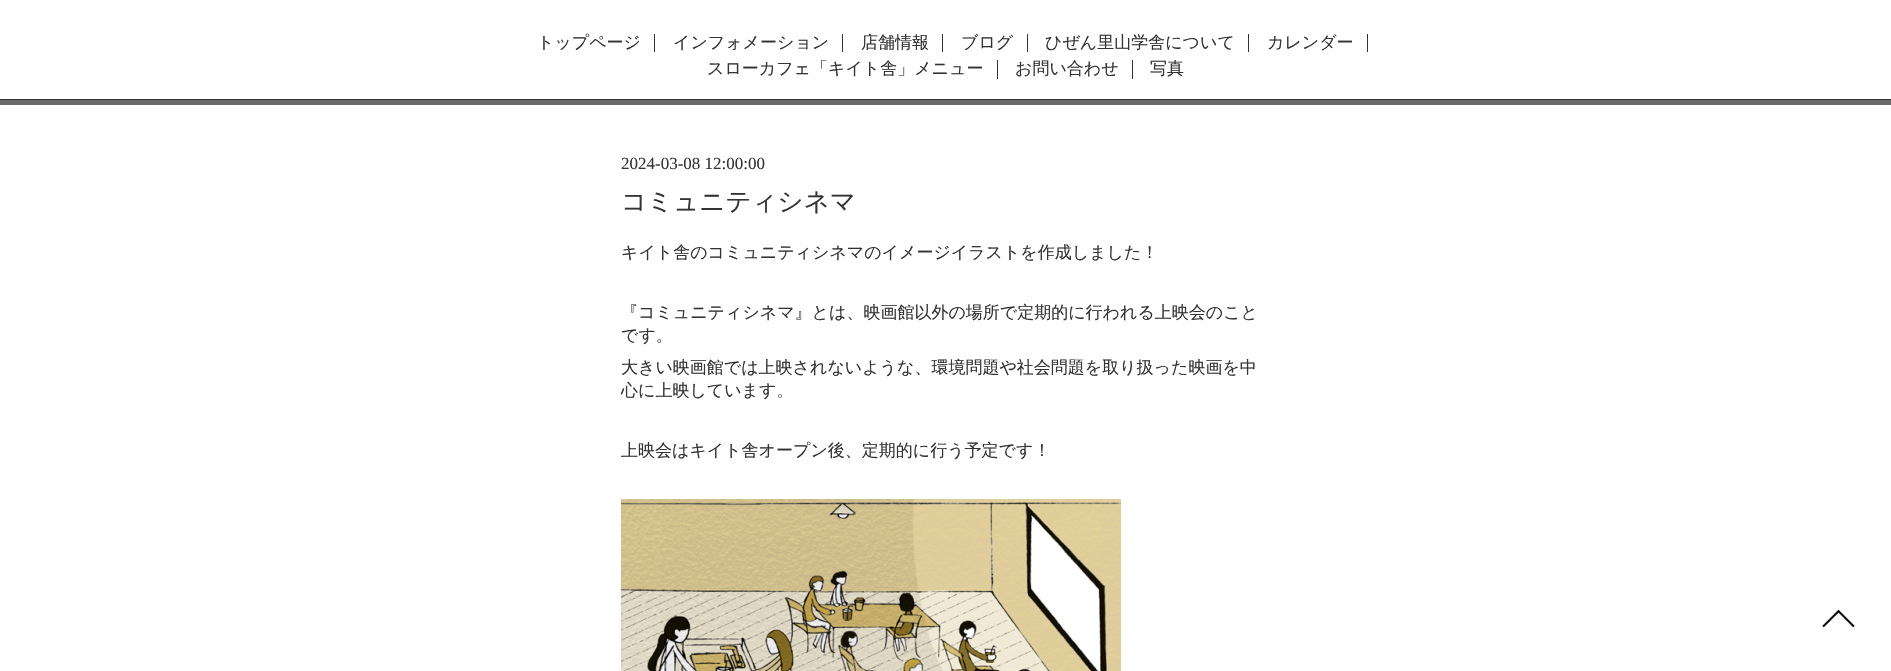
void draw(SkCanvas* c) {
SkPaint p;
p.setAntiAlias(true);
auto F=[&](const char* family, int weight, float size, bool italic = false){SkFontStyle style(weight, SkFontStyle::kNormal_Width,italic ? SkFontStyle::kItalic_Slant : SkFontStyle::kUpright_Slant);SkFont result(fontMgr->matchFamilyStyle(family, style), size);result.setSubpixel(true);return result;};
auto T=[&](const char* s, float x, float y, const SkFont& font){c->drawString(s, x, y, font, p);};
auto R=[&](float x, float y, float w, float h){c->drawRect(SkRect::MakeXYWH(x, y, w, h), p);};
auto I=[&](const char* path, float x, float y, float w, float h){auto image = SkImages::DeferredFromEncodedData(SkData::MakeFromFileName(path));c->drawImageRect(image, SkRect::MakeXYWH(x, y, w, h), SkSamplingOptions());};
c->clear(0xffffffff);
p.setColor(0xff333333);
R(0,99,1891,1);
R(654,34,1,18);
auto f1 = F("WenQuanYi Zen Hei",500,17);
T("トップページ",537,48,f1);
R(842,34,1,18);
T("インフォメーション",673,48,f1);
R(942,34,1,18);
T("店舗情報",861,48,f1);
R(1027,34,1,18);
T("ブログ",961,48,f1);
R(1248,34,1,18);
T("ひぜん里山学舎について",1045,48,f1);
R(1367,34,1,18);
T("カレンダー",1267,48,f1);
R(997,60,1,19);
T("スローカフェ「キイト舎」メニュー",707,74,f1);
R(1132,60,1,19);
T("お問い合わせ",1015,74,f1);
T("写真",1150,74,f1);
p.setColor(0xff6a6a6a);
R(0,100,1891,5);
auto f2 = F("Liberation Serif",400,17);
p.setColor(0xff333333);
T("2024-03-08 12:00:00",621,169,f2);
auto f3 = F("WenQuanYi Zen Hei",500,25.5);
T("コミュニティシネマ",621,210,f3);
T("キイト舎のコミュニティシネマのイメージイラストを作成しました！",621,258,f1);
T("『コミュニティシネマ』とは、映画館以外の場所で定期的に行われる上映会のこと",621,318,f1);
T("です。",621,341,f1);
T("大きい映画館では上映されないような、環境問題や社会問題を取り扱った映画を中",621,373,f1);
T("心に上映しています。",621,396,f1);
T("上映会はキイト舎オープン後、定期的に行う予定です！",621,456,f1);
I("1.png",621,499,500,172);
I("2.png",1822,609,33,19);
}
